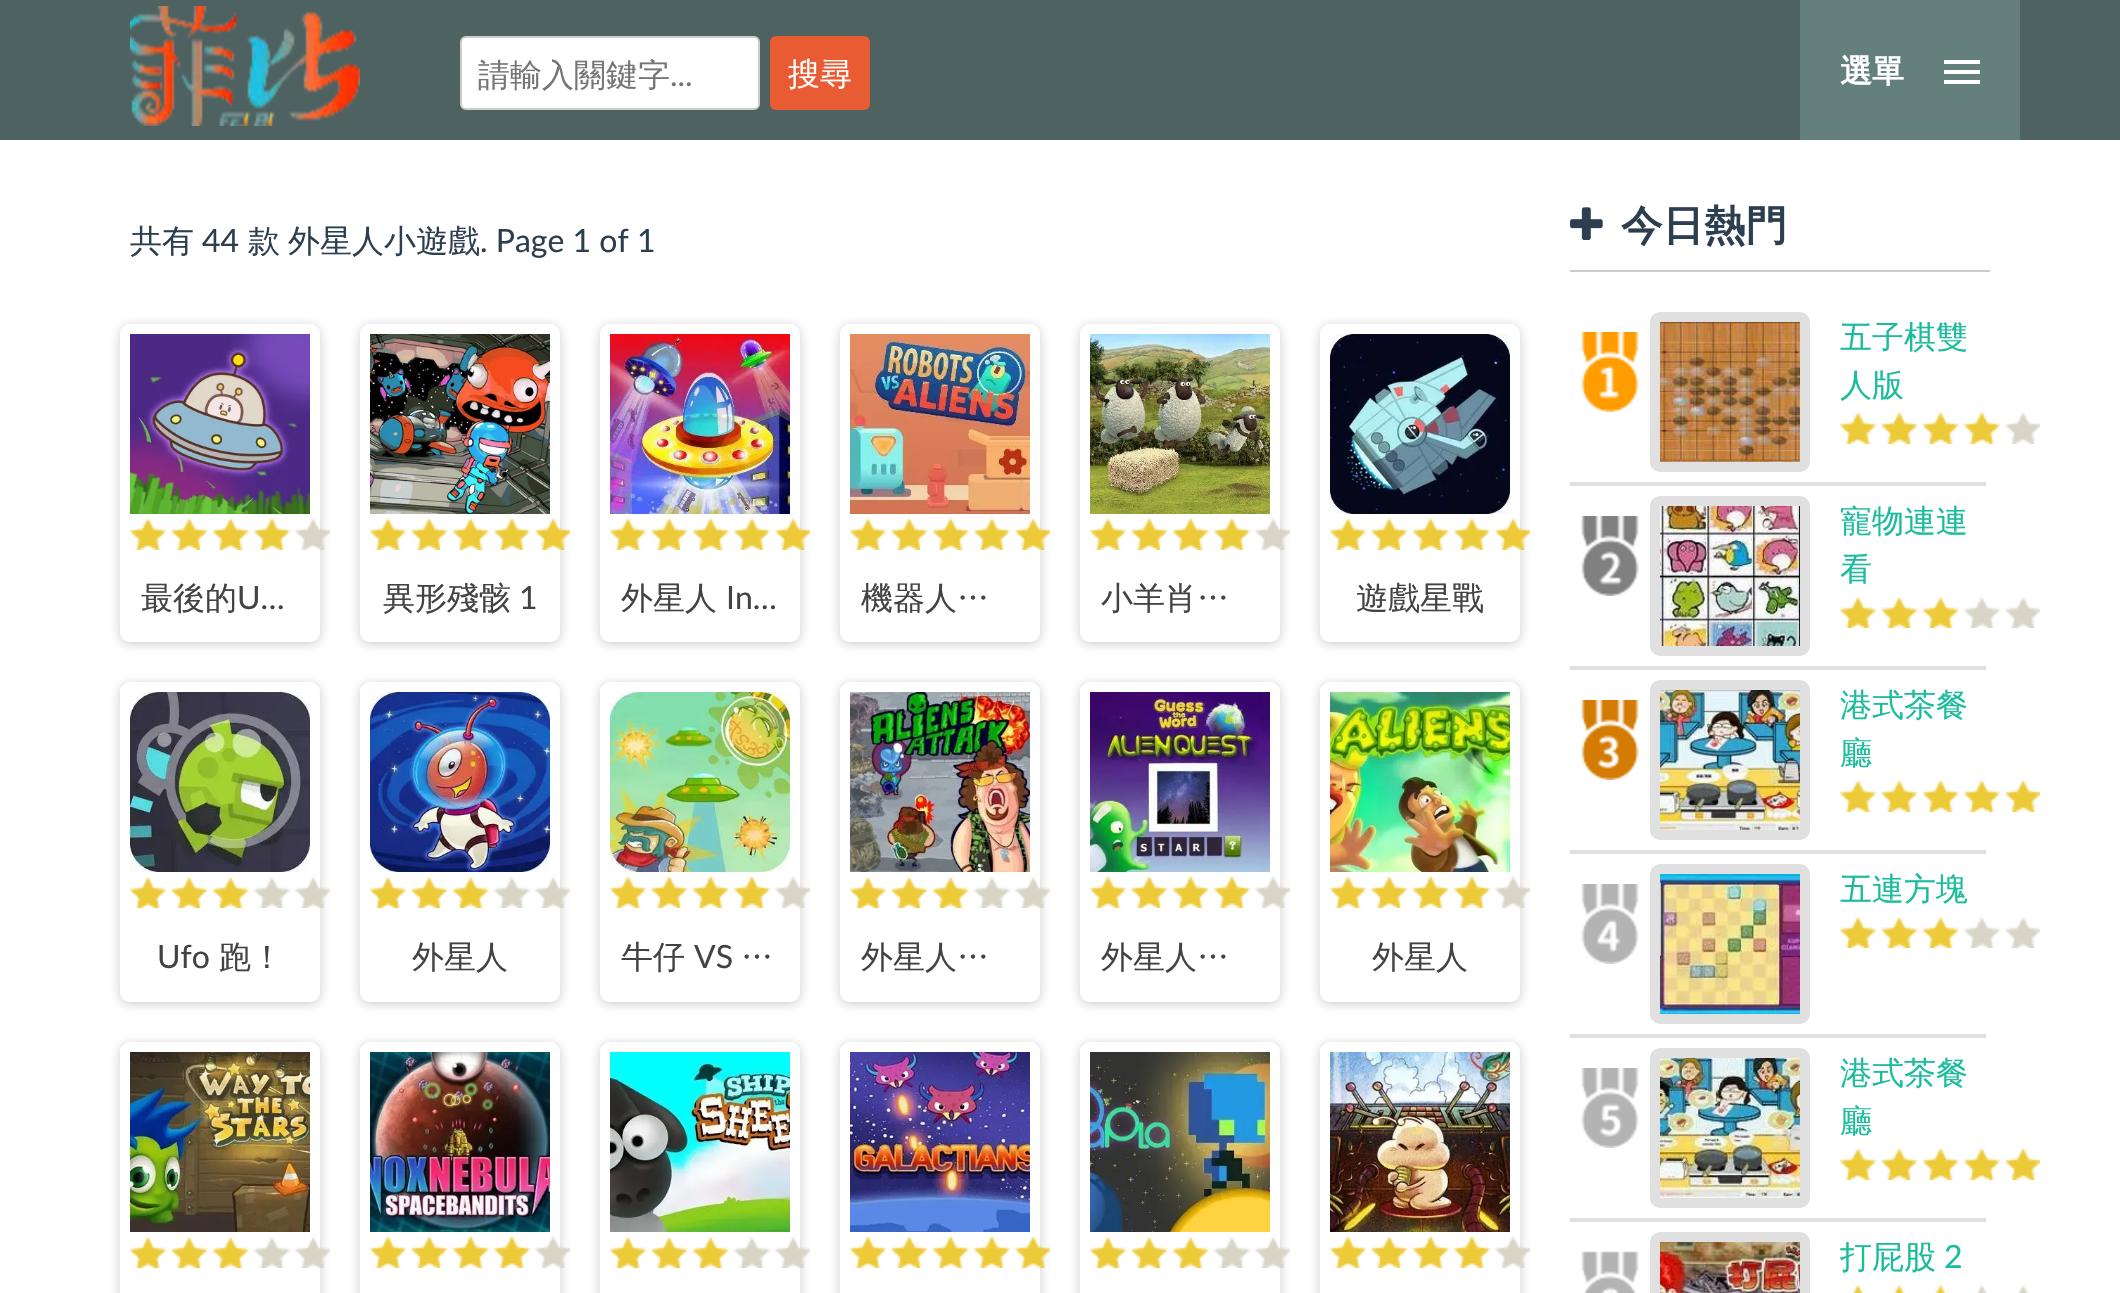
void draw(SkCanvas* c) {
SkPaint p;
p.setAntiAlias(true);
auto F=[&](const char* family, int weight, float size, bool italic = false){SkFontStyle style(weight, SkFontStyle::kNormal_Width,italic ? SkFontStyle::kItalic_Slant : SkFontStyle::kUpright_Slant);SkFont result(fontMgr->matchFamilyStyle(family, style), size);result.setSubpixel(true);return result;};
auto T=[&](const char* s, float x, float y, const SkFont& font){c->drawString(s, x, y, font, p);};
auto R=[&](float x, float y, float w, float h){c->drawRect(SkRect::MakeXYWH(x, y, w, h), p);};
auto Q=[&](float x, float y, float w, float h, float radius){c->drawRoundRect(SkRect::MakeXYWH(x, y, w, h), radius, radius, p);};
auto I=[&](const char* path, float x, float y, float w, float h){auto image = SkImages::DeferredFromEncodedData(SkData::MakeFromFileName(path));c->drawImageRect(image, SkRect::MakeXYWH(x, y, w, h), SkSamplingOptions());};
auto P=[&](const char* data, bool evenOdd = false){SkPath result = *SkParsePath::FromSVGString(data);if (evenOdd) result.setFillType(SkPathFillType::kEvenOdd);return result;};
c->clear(0xffffffff);
p.setColor(0xff4e6361);
R(0,0,2120,140);
I("1.png",130,6,230,120);
p.setColor(0xffffffff);
c->drawRoundRect(SkRect::MakeXYWH(461,37,298,72),5,5,p);
p.setStroke(true);
p.setStrokeWidth(2);
p.setColor(0xffcccccc);
c->drawRoundRect(SkRect::MakeXYWH(461,37,298,72),5,5,p);
auto f1 = F("WenQuanYi Zen Hei",500,32);
p.setStroke(false);
p.setColor(0xff757575);
T("請輸入關鍵字",478,86,f1);
auto f2 = F("Lato",400,32);
T("...",670,86,f2);
p.setColor(0xffe95c33);
Q(770,36,100,74,6);
p.setColor(0xffffffff);
T("搜尋",788,85,f1);
p.setColor(0xff64807d);
R(1800,0,220,140);
auto f3 = F("WenQuanYi Zen Hei",700,32);
p.setColor(0xffffffff);
T("選單",1840,82,f3);
R(1944,70,36,4);
R(1944,60,36,4);
R(1944,80,36,4);
p.setColor(0xff2c3e50);
T("共有",130,252,f1);
T("44",202,252,f2);
T("款",248,252,f1);
T("外星人小遊戲",288,252,f1);
T(". Page 1 of 1",480,252,f2);
c->save();
c->clipPath(P("M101 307h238v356h-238zm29 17h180c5.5 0 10 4.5 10 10v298c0 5.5-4.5 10-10 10h-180c-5.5 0-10-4.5-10-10v-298c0-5.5 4.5-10 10-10z",true),true);
p.setColor(0x40323232);
p.setMaskFilter(SkMaskFilter::MakeBlur(kNormal_SkBlurStyle, 6));
c->drawRoundRect(SkRect::MakeXYWH(120,326,200,318),10,10,p);
p.setMaskFilter(nullptr);
c->restore();
I("2.png",130,334,180,180);
I("3.png",130,518,200,32);
p.setColor(0xff434343);
T("最後的",141,609,f1);
T("U…",237,609,f2);
c->save();
c->clipPath(P("M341 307h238v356h-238zm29 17h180c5.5 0 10 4.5 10 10v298c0 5.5-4.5 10-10 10h-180c-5.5 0-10-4.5-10-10v-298c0-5.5 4.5-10 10-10z",true),true);
p.setColor(0x40323232);
p.setMaskFilter(SkMaskFilter::MakeBlur(kNormal_SkBlurStyle, 6));
c->drawRoundRect(SkRect::MakeXYWH(360,326,200,318),10,10,p);
p.setMaskFilter(nullptr);
c->restore();
I("4.png",370,334,180,180);
I("5.png",370,518,200,32);
p.setColor(0xff434343);
T("異形殘骸",383,609,f1);
T("1",519,609,f2);
c->save();
c->clipPath(P("M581 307h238v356h-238zm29 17h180c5.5 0 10 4.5 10 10v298c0 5.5-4.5 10-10 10h-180c-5.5 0-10-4.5-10-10v-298c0-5.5 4.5-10 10-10z",true),true);
p.setColor(0x40323232);
p.setMaskFilter(SkMaskFilter::MakeBlur(kNormal_SkBlurStyle, 6));
c->drawRoundRect(SkRect::MakeXYWH(600,326,200,318),10,10,p);
p.setMaskFilter(nullptr);
c->restore();
I("6.png",610,334,180,180);
I("5.png",610,518,200,32);
p.setColor(0xff434343);
T("外星人",621,609,f1);
T("In…",726,609,f2);
c->save();
c->clipPath(P("M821 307h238v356h-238zm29 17h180c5.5 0 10 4.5 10 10v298c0 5.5-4.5 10-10 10h-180c-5.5 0-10-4.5-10-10v-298c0-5.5 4.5-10 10-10z",true),true);
p.setColor(0x40323232);
p.setMaskFilter(SkMaskFilter::MakeBlur(kNormal_SkBlurStyle, 6));
c->drawRoundRect(SkRect::MakeXYWH(840,326,200,318),10,10,p);
p.setMaskFilter(nullptr);
c->restore();
I("7.png",850,334,180,180);
I("5.png",850,518,200,32);
p.setColor(0xff434343);
T("機器人…",861,609,f1);
c->save();
c->clipPath(P("M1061 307h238v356h-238zm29 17h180c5.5 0 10 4.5 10 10v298c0 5.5-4.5 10-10 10h-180c-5.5 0-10-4.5-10-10v-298c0-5.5 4.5-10 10-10z",true),true);
p.setColor(0x40323232);
p.setMaskFilter(SkMaskFilter::MakeBlur(kNormal_SkBlurStyle, 6));
c->drawRoundRect(SkRect::MakeXYWH(1080,326,200,318),10,10,p);
p.setMaskFilter(nullptr);
c->restore();
I("8.png",1090,334,180,180);
I("3.png",1090,518,200,32);
p.setColor(0xff434343);
T("小羊肖…",1101,609,f1);
c->save();
c->clipPath(P("M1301 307h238v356h-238zm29 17h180c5.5 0 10 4.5 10 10v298c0 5.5-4.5 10-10 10h-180c-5.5 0-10-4.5-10-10v-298c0-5.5 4.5-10 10-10z",true),true);
p.setColor(0x40323232);
p.setMaskFilter(SkMaskFilter::MakeBlur(kNormal_SkBlurStyle, 6));
c->drawRoundRect(SkRect::MakeXYWH(1320,326,200,318),10,10,p);
p.setMaskFilter(nullptr);
c->restore();
I("9.png",1330,334,180,180);
I("5.png",1330,518,200,32);
p.setColor(0xff434343);
T("遊戲星戰",1356,609,f1);
c->save();
c->clipPath(P("M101 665h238v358h-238zm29 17h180c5.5 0 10 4.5 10 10v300c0 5.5-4.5 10-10 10h-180c-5.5 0-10-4.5-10-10v-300c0-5.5 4.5-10 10-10z",true),true);
p.setColor(0x40323232);
p.setMaskFilter(SkMaskFilter::MakeBlur(kNormal_SkBlurStyle, 6));
c->drawRoundRect(SkRect::MakeXYWH(120,684,200,320),10,10,p);
p.setMaskFilter(nullptr);
c->restore();
I("10.png",130,692,180,180);
I("11.png",130,876,200,32);
p.setColor(0xff434343);
T("Ufo",157,968,f2);
T("跑！",219,968,f1);
c->save();
c->clipPath(P("M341 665h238v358h-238zm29 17h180c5.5 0 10 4.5 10 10v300c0 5.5-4.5 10-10 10h-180c-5.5 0-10-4.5-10-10v-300c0-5.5 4.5-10 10-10z",true),true);
p.setColor(0x40323232);
p.setMaskFilter(SkMaskFilter::MakeBlur(kNormal_SkBlurStyle, 6));
c->drawRoundRect(SkRect::MakeXYWH(360,684,200,320),10,10,p);
p.setMaskFilter(nullptr);
c->restore();
I("12.png",370,692,180,180);
I("11.png",370,876,200,32);
p.setColor(0xff434343);
T("外星人",412,968,f1);
c->save();
c->clipPath(P("M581 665h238v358h-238zm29 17h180c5.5 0 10 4.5 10 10v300c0 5.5-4.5 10-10 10h-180c-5.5 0-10-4.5-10-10v-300c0-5.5 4.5-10 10-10z",true),true);
p.setColor(0x40323232);
p.setMaskFilter(SkMaskFilter::MakeBlur(kNormal_SkBlurStyle, 6));
c->drawRoundRect(SkRect::MakeXYWH(600,684,200,320),10,10,p);
p.setMaskFilter(nullptr);
c->restore();
I("13.png",610,692,180,180);
I("3.png",610,876,200,32);
p.setColor(0xff434343);
T("牛仔",621,968,f1);
T("VS",694,968,f2);
T("…",741,968,f1);
c->save();
c->clipPath(P("M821 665h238v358h-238zm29 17h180c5.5 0 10 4.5 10 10v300c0 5.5-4.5 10-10 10h-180c-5.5 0-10-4.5-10-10v-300c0-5.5 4.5-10 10-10z",true),true);
p.setColor(0x40323232);
p.setMaskFilter(SkMaskFilter::MakeBlur(kNormal_SkBlurStyle, 6));
c->drawRoundRect(SkRect::MakeXYWH(840,684,200,320),10,10,p);
p.setMaskFilter(nullptr);
c->restore();
I("14.png",850,692,180,180);
I("11.png",850,876,200,32);
p.setColor(0xff434343);
T("外星人…",861,968,f1);
c->save();
c->clipPath(P("M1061 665h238v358h-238zm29 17h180c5.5 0 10 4.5 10 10v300c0 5.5-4.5 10-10 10h-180c-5.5 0-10-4.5-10-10v-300c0-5.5 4.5-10 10-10z",true),true);
p.setColor(0x40323232);
p.setMaskFilter(SkMaskFilter::MakeBlur(kNormal_SkBlurStyle, 6));
c->drawRoundRect(SkRect::MakeXYWH(1080,684,200,320),10,10,p);
p.setMaskFilter(nullptr);
c->restore();
I("15.png",1090,692,180,180);
I("3.png",1090,876,200,32);
p.setColor(0xff434343);
T("外星人…",1101,968,f1);
c->save();
c->clipPath(P("M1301 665h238v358h-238zm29 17h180c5.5 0 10 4.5 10 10v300c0 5.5-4.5 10-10 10h-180c-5.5 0-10-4.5-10-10v-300c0-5.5 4.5-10 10-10z",true),true);
p.setColor(0x40323232);
p.setMaskFilter(SkMaskFilter::MakeBlur(kNormal_SkBlurStyle, 6));
c->drawRoundRect(SkRect::MakeXYWH(1320,684,200,320),10,10,p);
p.setMaskFilter(nullptr);
c->restore();
I("16.png",1330,692,180,180);
I("3.png",1330,876,200,32);
p.setColor(0xff434343);
T("外星人",1372,968,f1);
c->save();
c->clipPath(P("M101 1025h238v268h-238zm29 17h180c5.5 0 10 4.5 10 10v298c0 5.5-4.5 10-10 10h-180c-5.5 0-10-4.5-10-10v-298c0-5.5 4.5-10 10-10z",true),true);
p.setColor(0x40323232);
p.setMaskFilter(SkMaskFilter::MakeBlur(kNormal_SkBlurStyle, 6));
c->drawRoundRect(SkRect::MakeXYWH(120,1044,200,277),10,10,p);
p.setMaskFilter(nullptr);
c->restore();
I("17.png",130,1052,180,180);
I("11.png",130,1236,200,32);
c->save();
c->clipPath(P("M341 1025h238v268h-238zm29 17h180c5.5 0 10 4.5 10 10v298c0 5.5-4.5 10-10 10h-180c-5.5 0-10-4.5-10-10v-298c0-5.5 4.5-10 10-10z",true),true);
p.setMaskFilter(SkMaskFilter::MakeBlur(kNormal_SkBlurStyle, 6));
c->drawRoundRect(SkRect::MakeXYWH(360,1044,200,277),10,10,p);
p.setMaskFilter(nullptr);
c->restore();
I("18.png",370,1052,180,180);
I("3.png",370,1236,200,32);
c->save();
c->clipPath(P("M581 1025h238v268h-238zm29 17h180c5.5 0 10 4.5 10 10v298c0 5.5-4.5 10-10 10h-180c-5.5 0-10-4.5-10-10v-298c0-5.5 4.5-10 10-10z",true),true);
p.setMaskFilter(SkMaskFilter::MakeBlur(kNormal_SkBlurStyle, 6));
c->drawRoundRect(SkRect::MakeXYWH(600,1044,200,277),10,10,p);
p.setMaskFilter(nullptr);
c->restore();
I("19.png",610,1052,180,180);
I("11.png",610,1236,200,32);
c->save();
c->clipPath(P("M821 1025h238v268h-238zm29 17h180c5.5 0 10 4.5 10 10v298c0 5.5-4.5 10-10 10h-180c-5.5 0-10-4.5-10-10v-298c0-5.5 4.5-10 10-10z",true),true);
p.setMaskFilter(SkMaskFilter::MakeBlur(kNormal_SkBlurStyle, 6));
c->drawRoundRect(SkRect::MakeXYWH(840,1044,200,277),10,10,p);
p.setMaskFilter(nullptr);
c->restore();
I("20.png",850,1052,180,180);
I("5.png",850,1236,200,32);
c->save();
c->clipPath(P("M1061 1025h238v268h-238zm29 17h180c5.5 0 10 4.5 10 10v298c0 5.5-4.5 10-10 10h-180c-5.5 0-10-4.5-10-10v-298c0-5.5 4.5-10 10-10z",true),true);
p.setMaskFilter(SkMaskFilter::MakeBlur(kNormal_SkBlurStyle, 6));
c->drawRoundRect(SkRect::MakeXYWH(1080,1044,200,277),10,10,p);
p.setMaskFilter(nullptr);
c->restore();
I("21.png",1090,1052,180,180);
I("11.png",1090,1236,200,32);
c->save();
c->clipPath(P("M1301 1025h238v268h-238zm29 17h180c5.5 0 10 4.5 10 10v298c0 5.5-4.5 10-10 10h-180c-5.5 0-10-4.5-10-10v-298c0-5.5 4.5-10 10-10z",true),true);
p.setMaskFilter(SkMaskFilter::MakeBlur(kNormal_SkBlurStyle, 6));
c->drawRoundRect(SkRect::MakeXYWH(1320,1044,200,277),10,10,p);
p.setMaskFilter(nullptr);
c->restore();
I("22.png",1330,1052,180,180);
I("3.png",1330,1236,200,32);
p.setColor(0xffcccccc);
R(1570,270,420,2);
I("23.png",1570,207,33,33);
auto f4 = F("WenQuanYi Zen Hei",700,41.5);
p.setColor(0xff2c3e50);
T("今日熱門",1621,240,f4);
p.setColor(0xffe0e0e0);
R(1570,482,416,4);
I("24.png",1581,332,58,80);
p.setStroke(true);
p.setStrokeWidth(10);
c->drawRoundRect(SkRect::MakeXYWH(1655,317,150,150),5,5,p);
I("25.png",1660,322,140,140);
p.setStroke(false);
p.setColor(0xff1abc9c);
T("五子棋雙",1840,348,f1);
T("人版",1840,396,f1);
I("26.png",1840,412,200,32);
p.setColor(0xffe0e0e0);
R(1570,666,416,4);
I("27.png",1581,516,58,80);
p.setStroke(true);
c->drawRoundRect(SkRect::MakeXYWH(1655,501,150,150),5,5,p);
I("28.png",1660,506,140,140);
p.setStroke(false);
p.setColor(0xff1abc9c);
T("寵物連連",1840,532,f1);
T("看",1840,580,f1);
I("29.png",1840,596,200,32);
p.setColor(0xffe0e0e0);
R(1570,850,416,4);
I("30.png",1581,700,58,80);
p.setStroke(true);
c->drawRoundRect(SkRect::MakeXYWH(1655,685,150,150),5,5,p);
I("31.png",1660,690,140,140);
p.setStroke(false);
p.setColor(0xff1abc9c);
T("港式茶餐",1840,716,f1);
T("廳",1840,764,f1);
I("32.png",1840,780,200,32);
p.setColor(0xffe0e0e0);
R(1570,1034,416,4);
I("33.png",1581,884,58,80);
p.setStroke(true);
c->drawRoundRect(SkRect::MakeXYWH(1655,869,150,150),5,5,p);
I("34.png",1660,874,140,140);
p.setStroke(false);
p.setColor(0xff1abc9c);
T("五連方塊",1840,900,f1);
I("29.png",1840,916,200,32);
p.setColor(0xffe0e0e0);
R(1570,1218,416,4);
I("35.png",1581,1068,58,80);
p.setStroke(true);
c->drawRoundRect(SkRect::MakeXYWH(1655,1053,150,150),5,5,p);
I("36.png",1660,1058,140,140);
p.setStroke(false);
p.setColor(0xff1abc9c);
T("港式茶餐",1840,1084,f1);
T("廳",1840,1132,f1);
I("32.png",1840,1148,200,32);
I("37.png",1581,1251,58,42);
p.setStroke(true);
p.setColor(0xffe0e0e0);
c->drawRoundRect(SkRect::MakeXYWH(1655,1237,150,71),5,5,p);
I("38.png",1660,1242,140,51);
p.setStroke(false);
p.setColor(0xff1abc9c);
T("打屁股",1840,1268,f1);
T("2",1944,1268,f2);
I("39.png",1852,1284,177,9);
}
